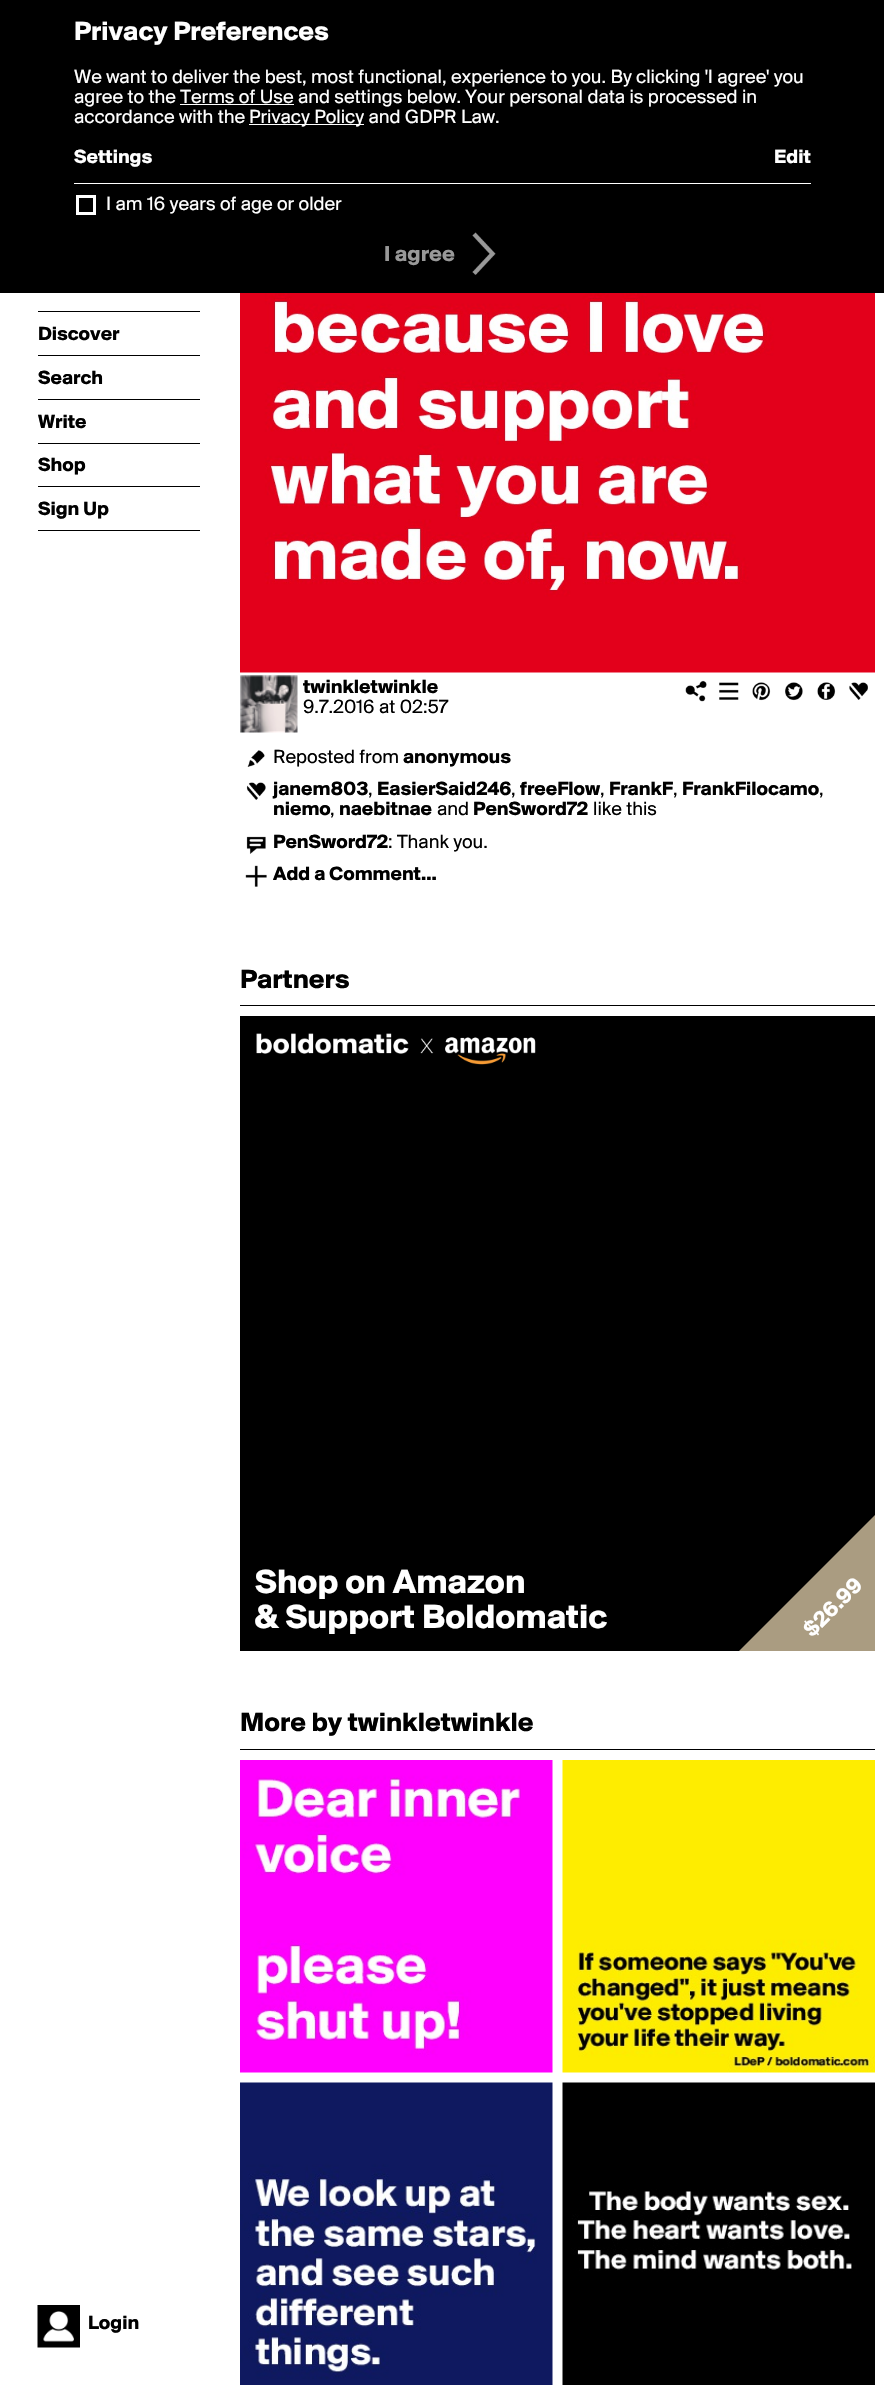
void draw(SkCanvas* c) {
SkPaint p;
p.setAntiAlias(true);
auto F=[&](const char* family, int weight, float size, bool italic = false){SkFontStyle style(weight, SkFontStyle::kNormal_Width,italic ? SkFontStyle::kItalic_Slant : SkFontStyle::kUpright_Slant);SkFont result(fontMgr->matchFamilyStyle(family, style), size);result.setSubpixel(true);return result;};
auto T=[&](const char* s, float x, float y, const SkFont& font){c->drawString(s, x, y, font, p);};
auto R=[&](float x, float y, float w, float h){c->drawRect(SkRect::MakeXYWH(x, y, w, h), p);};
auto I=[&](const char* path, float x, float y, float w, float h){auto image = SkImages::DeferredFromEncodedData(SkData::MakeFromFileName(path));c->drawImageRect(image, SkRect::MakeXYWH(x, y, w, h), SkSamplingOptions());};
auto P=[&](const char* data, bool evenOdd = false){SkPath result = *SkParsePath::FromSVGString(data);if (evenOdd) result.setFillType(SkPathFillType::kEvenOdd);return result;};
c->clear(0xffffffff);
p.setColor(0xff000000);
R(0,0,884,293);
auto f1 = F("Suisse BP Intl",700,27.5);
p.setColor(0xffffffff);
T("Privacy Preferences",74,40,f1);
auto f2 = F("Suisse BP Intl",400,20);
T("We want to deliver the best, most functional, experience to you. By clicking 'I agree' you",74,83,f2);
T("agree to the Terms of Use and settings below. Your personal data is processed in",74,103,f2);
R(180,104,114,1);
T("accordance with the",74,123,f2);
R(249,124,115,1);
T("Privacy Policy and GDPR Law.",249,123,f2);
auto f3 = F("Suisse BP Intl",700,20);
T("Settings",74,163,f3);
T("Edit",774,163,f3);
R(74,183,737,1);
p.setStroke(true);
p.setStrokeWidth(3);
c->drawRect(SkRect::MakeXYWH(77.5,196.5,17,17),p);
p.setStroke(false);
T("I am 16 years of age or older",106,210,f2);
auto f4 = F("Suisse BP Intl",700,22.5);
p.setColor(0xff999999);
T("I agree",384,261,f4);
I("1.png",472,232,24,43);
p.setColor(0xff000000);
R(38,311,162,1);
R(38,355,162,1);
T("Discover",38,340,f3);
R(38,399,162,1);
T("Search",38,384,f3);
R(38,443,162,1);
T("Write",38,428,f3);
R(38,486,162,1);
T("Shop",38,471,f3);
R(38,530,162,1);
T("Sign Up",38,515,f3);
I("2.png",37,2305,43,43);
T("Login",88,2329,f3);
I("3.png",240,293,635,380);
I("4.png",240,675,58,58);
T("twinkletwinkle",303,693,f3);
T("9.7.2016 at 02:57",303,713,f2);
I("5.png",685,680,22,22);
I("6.png",719,682,20,18);
I("7.png",752,682,19,19);
I("8.png",785,682,18,19);
I("9.png",817,682,19,18);
I("10.png",849,682,19,18);
I("11.png",247,750,18,17);
T("Reposted from",273,763,f2);
T("anonymous",403,763,f3);
I("12.png",246,782,20,18);
T("janem803",273,795,f3);
T(",",368,795,f2);
T("EasierSaid246",377,795,f3);
T(",",511,795,f2);
T("freeFlow",520,795,f3);
T(",",600,795,f2);
T("FrankF",609,795,f3);
T(",",673,795,f2);
T("FrankFilocamo",682,795,f3);
T(",",819,795,f2);
T("niemo",273,815,f3);
T(",",330,815,f2);
T("naebitnae",339,815,f3);
T("and",437,815,f2);
T("PenSword72",473,815,f3);
T("like this",593,815,f2);
I("13.png",246,836,20,18);
T("PenSword72",273,848,f3);
T(": Thank you.",388,848,f2);
I("14.png",245,865,22,22);
T("Add a Comment...",273,880,f3);
R(240,1005,635,1);
T("Partners",240,988,f1);
R(240,1016,635,635);
I("15.png",256,1033,280,32);
auto f5 = F("Suisse BP Intl",700,35);
p.setColor(0xffffffff);
T("Shop on Amazon",255,1593,f5);
T("& Support Boldomatic",255,1628,f5);
c->save();
c->clipRect(SkRect::MakeXYWH(240,1016,635,635));
p.setColor(0xffaa9c81);
c->drawPath(P("M721 1669l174-174l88 88l-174 175z"),p);
c->restore();
p.setColor(0xffffffff);
c->save();
c->rotate(-45,812,1638);
T("$26.99",812,1638,f4);
c->restore();
p.setColor(0xff000000);
R(240,1749,635,1);
T("More by twinkletwinkle",240,1731,f1);
I("16.png",240,1760,313,313);
I("17.png",562,1760,313,313);
I("18.png",240,2082,313,303);
I("19.png",562,2082,313,303);
}
